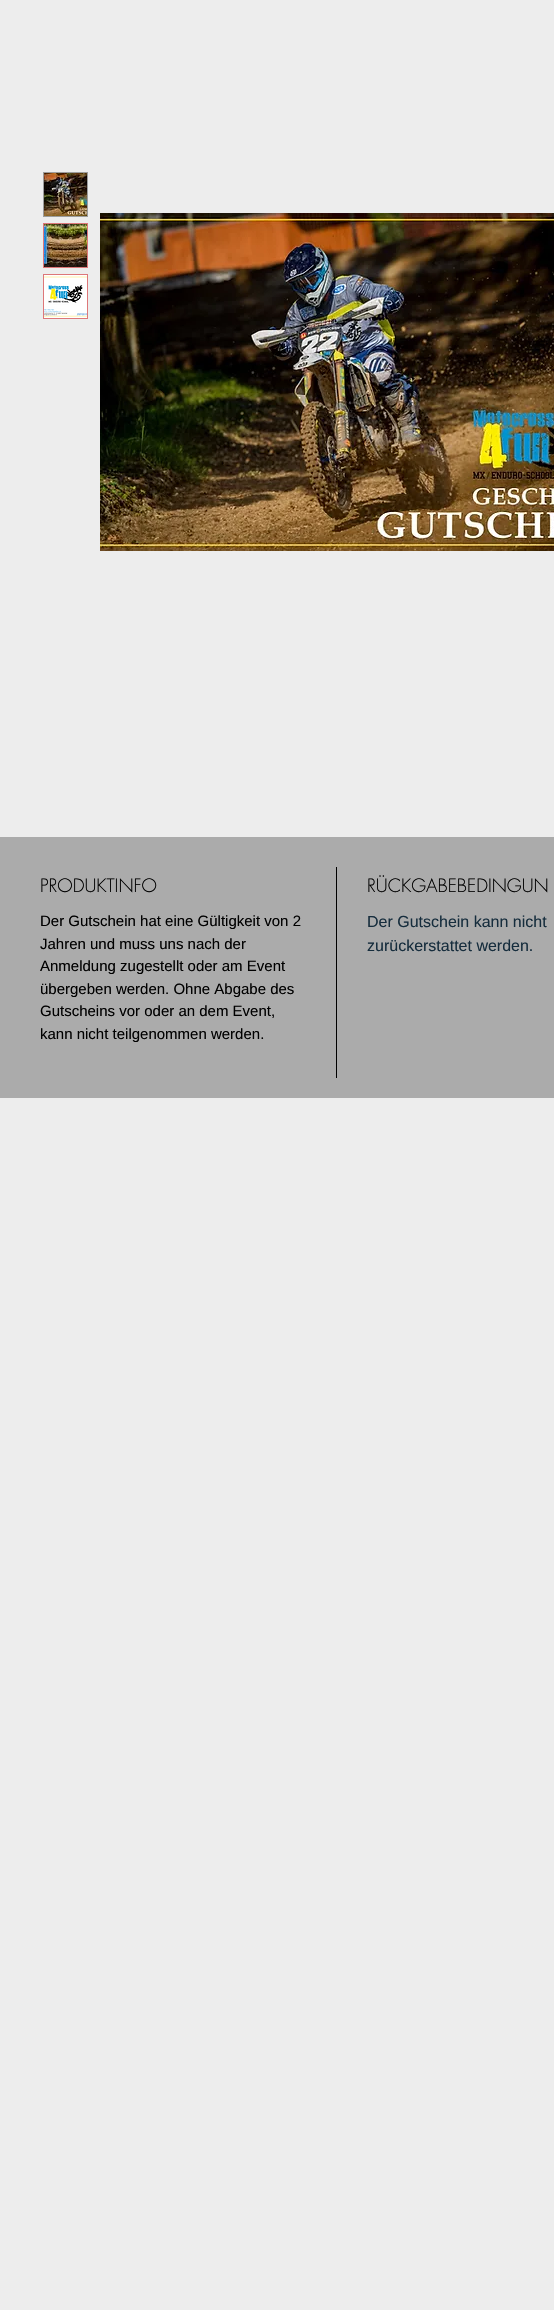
void draw(SkCanvas* c) {
SkPaint p;
p.setAntiAlias(true);
auto F=[&](const char* family, int weight, float size, bool italic = false){SkFontStyle style(weight, SkFontStyle::kNormal_Width,italic ? SkFontStyle::kItalic_Slant : SkFontStyle::kUpright_Slant);SkFont result(fontMgr->matchFamilyStyle(family, style), size);result.setSubpixel(true);return result;};
auto T=[&](const char* s, float x, float y, const SkFont& font){c->drawString(s, x, y, font, p);};
auto R=[&](float x, float y, float w, float h){c->drawRect(SkRect::MakeXYWH(x, y, w, h), p);};
auto I=[&](const char* path, float x, float y, float w, float h){auto image = SkImages::DeferredFromEncodedData(SkData::MakeFromFileName(path));c->drawImageRect(image, SkRect::MakeXYWH(x, y, w, h), SkSamplingOptions());};
c->clear(0xffededed);
p.setStroke(true);
p.setStrokeWidth(1);
p.setColor(0xff9c9c9c);
c->drawRect(SkRect::MakeXYWH(43.5,172.5,44,44),p);
I("1.png",44,173,43,43);
p.setColor(0xffdd7779);
c->drawRect(SkRect::MakeXYWH(43.5,223.5,44,44),p);
I("2.png",44,224,43,43);
c->drawRect(SkRect::MakeXYWH(43.5,274.5,44,44),p);
I("3.png",44,275,43,43);
I("4.png",100,213,454,338);
p.setStroke(false);
p.setColor(0xffababab);
R(0,837,554,261);
p.setColor(0xff000000);
R(336,867,1,211);
auto f1 = F("futura",300,18);
T("PRODUKTINFO",40,892,f1);
auto f2 = F("Liberation Sans",400,15);
T("Der Gutschein hat eine Gültigkeit von 2",40,926,f2);
T("Jahren und muss uns nach der",40,949,f2);
T("Anmeldung zugestellt oder am Event",40,971,f2);
T("übergeben werden. Ohne Abgabe des",40,994,f2);
T("Gutscheins vor oder an dem Event,",40,1016,f2);
T("kann nicht teilgenommen werden.",40,1039,f2);
T("RÜCKGABEBEDINGUN",367,892,f1);
auto f3 = F("Liberation Sans",400,16);
p.setColor(0xff162d3d);
T("Der Gutschein kann nicht",367,927,f3);
T("zurückerstattet werden.",367,951,f3);
}
